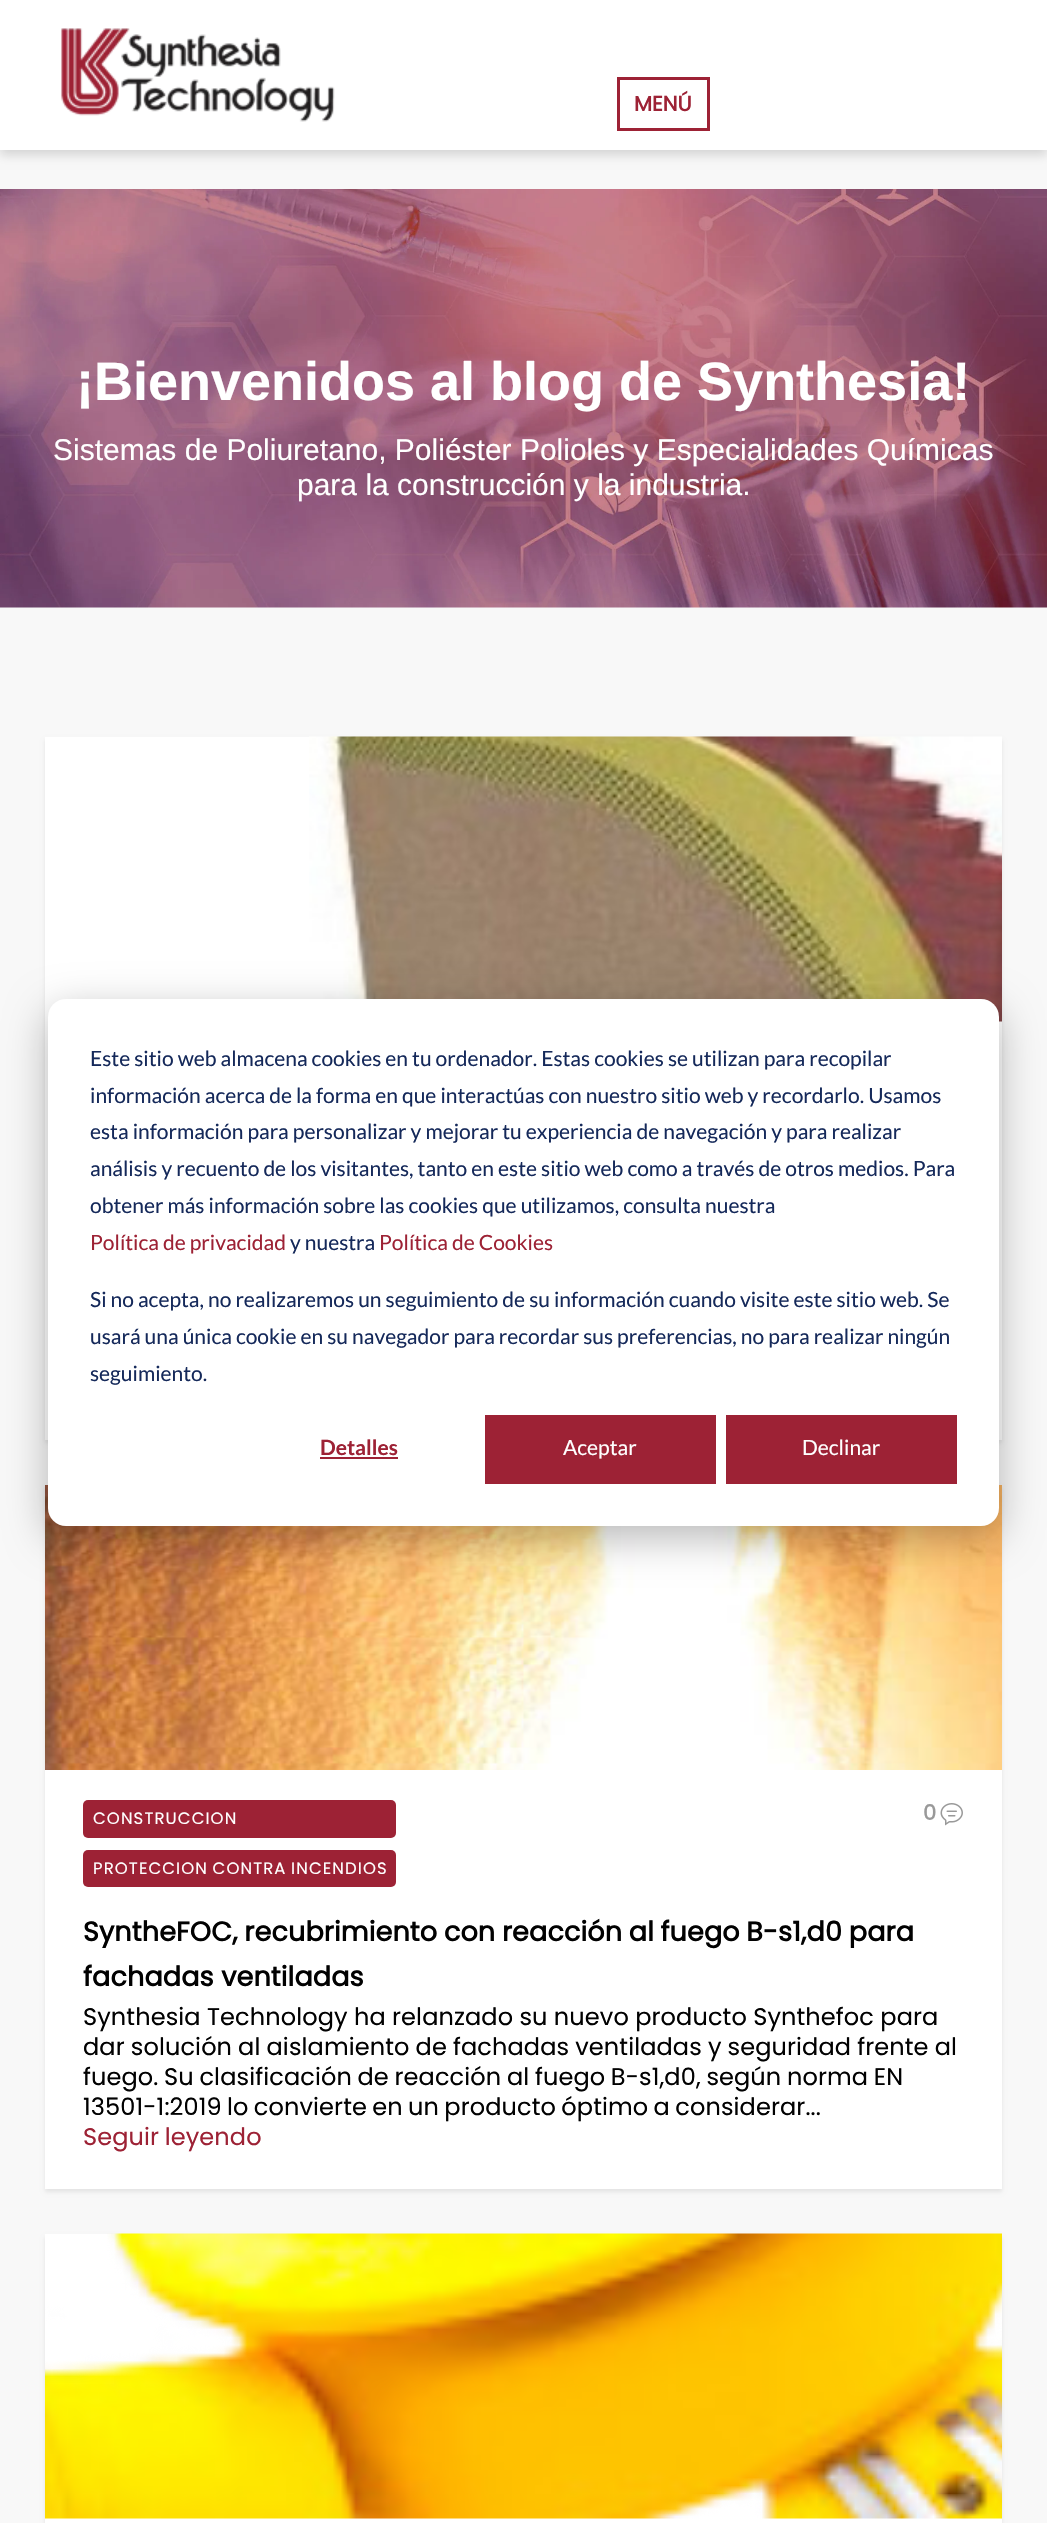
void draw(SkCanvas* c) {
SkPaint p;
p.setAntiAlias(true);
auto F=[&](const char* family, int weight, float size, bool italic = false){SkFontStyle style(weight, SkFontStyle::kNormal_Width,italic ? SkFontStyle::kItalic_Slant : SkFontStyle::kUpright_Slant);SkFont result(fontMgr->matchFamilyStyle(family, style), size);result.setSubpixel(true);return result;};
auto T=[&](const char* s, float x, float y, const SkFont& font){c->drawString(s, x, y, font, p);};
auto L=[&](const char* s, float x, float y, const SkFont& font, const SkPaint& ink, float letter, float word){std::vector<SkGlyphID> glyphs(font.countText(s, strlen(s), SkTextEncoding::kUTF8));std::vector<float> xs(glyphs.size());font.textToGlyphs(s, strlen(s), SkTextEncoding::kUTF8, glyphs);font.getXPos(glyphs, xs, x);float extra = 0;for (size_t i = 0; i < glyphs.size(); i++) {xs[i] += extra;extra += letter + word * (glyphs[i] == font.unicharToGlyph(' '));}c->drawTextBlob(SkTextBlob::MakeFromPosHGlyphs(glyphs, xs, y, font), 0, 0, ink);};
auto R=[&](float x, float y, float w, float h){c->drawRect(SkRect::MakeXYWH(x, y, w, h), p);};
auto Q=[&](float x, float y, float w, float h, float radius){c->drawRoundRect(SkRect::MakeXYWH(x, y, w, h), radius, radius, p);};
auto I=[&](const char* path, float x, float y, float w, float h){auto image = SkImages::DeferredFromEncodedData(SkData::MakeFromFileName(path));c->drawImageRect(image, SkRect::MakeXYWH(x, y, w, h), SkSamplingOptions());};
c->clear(0xfff8f8f8);
p.setColor(0x26000000);
p.setMaskFilter(SkMaskFilter::MakeBlur(kNormal_SkBlurStyle, 5));
c->drawRect(SkRect::MakeXYWH(0,5,1047,150),p);
p.setMaskFilter(nullptr);
p.setColor(0xffffffff);
R(0,0,1047,150);
I("1.png",61,28,274,94);
p.setStroke(true);
p.setStrokeWidth(3);
p.setColor(0xff9d2235);
c->drawRect(SkRect::MakeXYWH(618.5,78.5,90,51),p);
auto f1 = F("Poppins",700,21);
p.setStroke(false);
T("MENÚ",634,111,f1);
I("2.png",0,189,1047,419);
auto f2 = F("Liberation Sans",700,54);
p.setColor(0xffffffff);
T("¡Bienvenidos al blog de Synthesia!",76,400,f2);
auto f3 = F("Liberation Sans",400,30);
T("Sistemas de Poliuretano, Poliéster Polioles y Especialidades Químicas",53,460,f3);
T("para la construcción y la industria.",297,495,f3);
p.setColor(0x14000000);
p.setMaskFilter(SkMaskFilter::MakeBlur(kNormal_SkBlurStyle, 2));
c->drawRect(SkRect::MakeXYWH(45,740,957,703),p);
p.setMaskFilter(nullptr);
p.setColor(0xffffffff);
R(45,737,957,703);
I("3.png",309,736,693,286);
p.setColor(0x14000000);
p.setMaskFilter(SkMaskFilter::MakeBlur(kNormal_SkBlurStyle, 2));
c->drawRect(SkRect::MakeXYWH(45,1488,957,704),p);
p.setMaskFilter(nullptr);
p.setColor(0xffffffff);
R(45,1770,957,419);
I("4.png",45,1485,957,285);
p.setColor(0xff9d2235);
Q(83,1800,313,38,5);
auto f4 = F("Poppins",400,16.5);
p.setColor(0xffffffff);
L("CONSTRUCCION",93,1824,f4,p,1.1,0);
p.setColor(0xff9d2235);
Q(83,1850,313,37,5);
p.setColor(0xffffffff);
L("PROTECCION CONTRA INCENDIOS",93,1874,f4,p,1.1,-1);
p.setColor(0xff999999);
T("0",923,1820,f1);
I("5.png",940,1803,23,23);
auto f5 = F("Poppins",700,27);
p.setColor(0xff010101);
L("SyntheFOC, recubrimiento con reacción al fuego B-s1,d0 para",83,1941,f5,p,.15,-.75);
L("fachadas ventiladas",83,1986,f5,p,.15,0);
auto f6 = F("Poppins",400,24);
L("Synthesia Technology ha relanzado su nuevo producto Synthefoc para",83,2025,f6,p,.12,-.25);
L("dar solución al aislamiento de fachadas ventiladas y seguridad frente al",83,2055,f6,p,.12,-.5);
L("fuego. Su clasificación de reacción al fuego B-s1,d0, según norma EN",83,2085,f6,p,.12,-.9);
L("13501-1:2019 lo convierte en un producto óptimo a considerar...",83,2115,f6,p,.12,-1.25);
p.setColor(0xff9d2235);
L("Seguir leyendo",83,2145,f6,p,.12,-1);
p.setColor(0x14000000);
p.setMaskFilter(SkMaskFilter::MakeBlur(kNormal_SkBlurStyle, 2));
c->drawRect(SkRect::MakeXYWH(45,2237,957,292),p);
p.setMaskFilter(nullptr);
p.setColor(0xffffffff);
R(45,2234,957,289);
I("6.png",45,2233,957,286);
p.setColor(0x47000000);
p.setMaskFilter(SkMaskFilter::MakeBlur(kNormal_SkBlurStyle, 21));
c->drawRoundRect(SkRect::MakeXYWH(48,1011,951,527),18,18,p);
p.setMaskFilter(nullptr);
p.setColor(0xffffffff);
Q(48,999,951,527,18);
auto f7 = F("Lato",400,21);
p.setColor(0xff15295a);
T("Este sitio web almacena cookies en tu ordenador. Estas cookies se utilizan para recopilar",90,1066,f7);
T("información acerca de la forma en que interactúas con nuestro sitio web y recordarlo. Usamos",90,1103,f7);
T("esta información para personalizar y mejorar tu experiencia de navegación y para realizar",90,1139,f7);
T("análisis y recuento de los visitantes, tanto en este sitio web como a través de otros medios. Para",90,1176,f7);
T("obtener más información sobre las cookies que utilizamos, consulta nuestra",90,1213,f7);
p.setColor(0xff9d2235);
T("Política de privacidad",90,1250,f7);
p.setColor(0xff15295a);
T("y nuestra",290,1250,f7);
p.setColor(0xff9d2235);
T("Política de Cookies",379,1250,f7);
p.setColor(0xff15295a);
T("Si no acepta, no realizaremos un seguimiento de su información cuando visite este sitio web. Se",90,1307,f7);
T("usará una única cookie en su navegador para recordar sus preferencias, no para realizar ningún",90,1344,f7);
T("seguimiento.",90,1381,f7);
auto f8 = F("Lato",700,21);
p.setColor(0xff9d2235);
T("Detalles",320,1455,f8);
R(320,1457,78,2);
R(485,1415,231,69);
p.setColor(0xffffffff);
T("Aceptar",563,1455,f7);
p.setColor(0xff9d2235);
R(726,1415,231,69);
p.setColor(0xffffffff);
T("Declinar",802,1455,f7);
}
